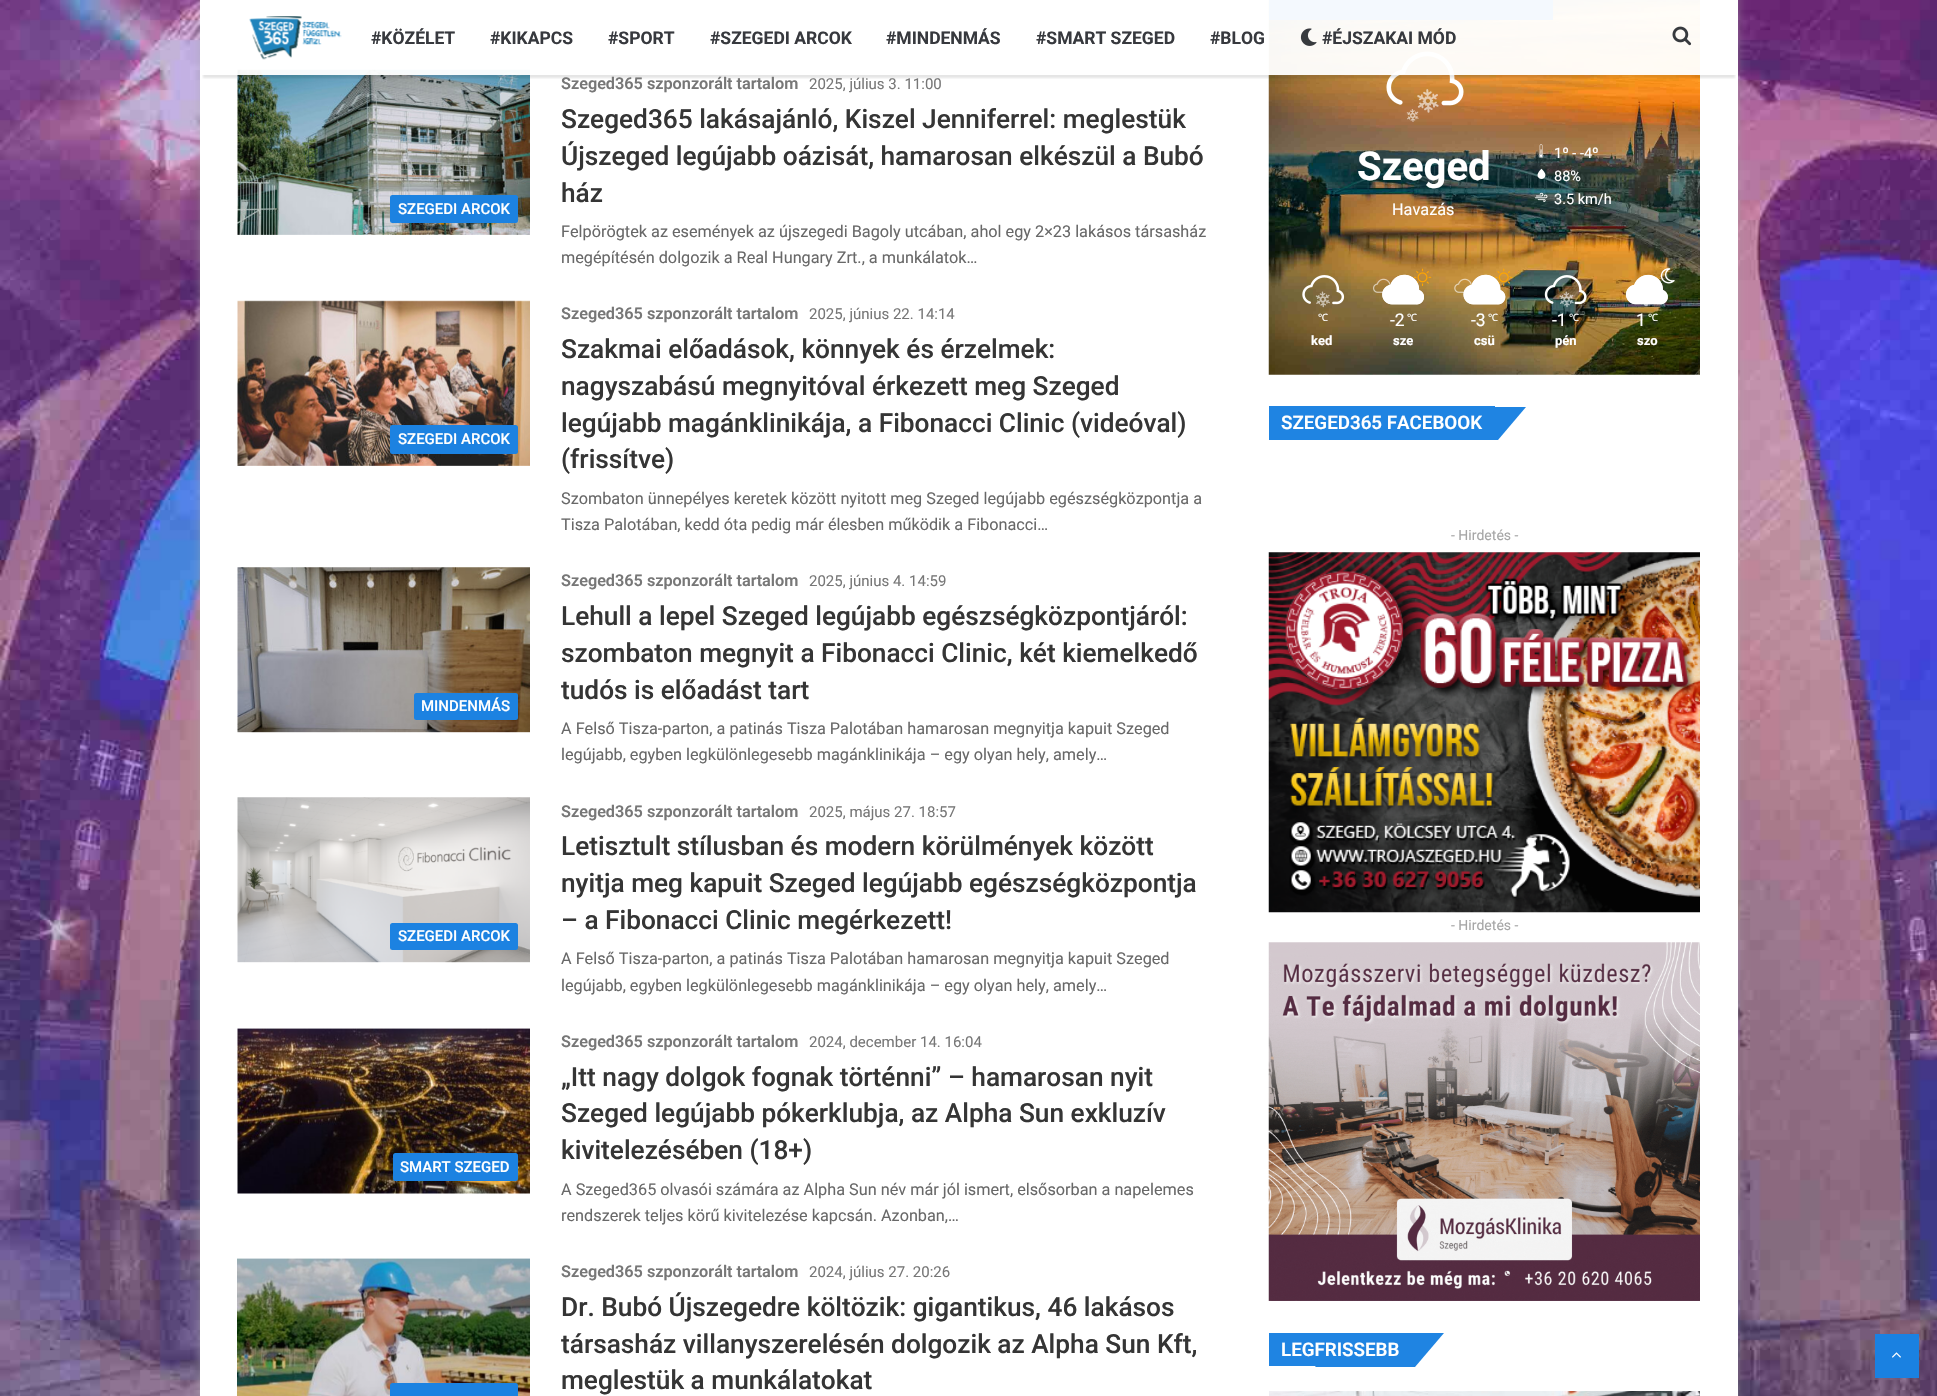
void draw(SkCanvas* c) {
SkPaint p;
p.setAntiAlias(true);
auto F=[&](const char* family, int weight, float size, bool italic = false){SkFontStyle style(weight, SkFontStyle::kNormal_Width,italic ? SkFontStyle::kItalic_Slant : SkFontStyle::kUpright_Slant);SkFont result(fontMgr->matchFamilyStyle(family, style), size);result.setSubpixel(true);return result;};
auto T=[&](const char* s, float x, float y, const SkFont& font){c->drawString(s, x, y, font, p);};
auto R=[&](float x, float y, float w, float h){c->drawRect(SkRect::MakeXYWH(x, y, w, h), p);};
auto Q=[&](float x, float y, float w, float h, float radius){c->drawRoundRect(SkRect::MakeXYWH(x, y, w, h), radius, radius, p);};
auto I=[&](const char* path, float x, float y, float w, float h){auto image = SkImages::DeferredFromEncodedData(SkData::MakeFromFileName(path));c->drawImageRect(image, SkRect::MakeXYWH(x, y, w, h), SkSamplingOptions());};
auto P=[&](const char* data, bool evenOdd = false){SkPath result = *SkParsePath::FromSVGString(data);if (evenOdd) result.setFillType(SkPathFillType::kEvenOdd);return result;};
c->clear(0xffffffff);
I("1.png",0,0,1937,1396);
p.setColor(0x80ababab);
p.setMaskFilter(SkMaskFilter::MakeBlur(kNormal_SkBlurStyle, 4.5));
c->drawRect(SkRect::MakeXYWH(200,-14,1538,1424),p);
p.setMaskFilter(nullptr);
p.setColor(0xffffffff);
R(200,0,1538,1396);
I("5.png",237,69,293,166);
I("11.png",1268,0,432,375);
p.setColor(0xfc1a81e1);
R(1269,0,284,20);
I("12.png",1386,51,78,55);
c->save();
c->clipRect(SkRect::MakeXYWH(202,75,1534,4));
p.setColor(0x1a000000);
p.setMaskFilter(SkMaskFilter::MakeBlur(kNormal_SkBlurStyle, 1));
c->drawRect(SkRect::MakeXYWH(203,8,1532,70),p);
p.setMaskFilter(nullptr);
c->restore();
p.setColor(0xf2ffffff);
R(237,0,1463,75);
I("2.png",249,16,93,44);
auto f1 = F("Roboto",700,17.5);
p.setColor(0xff37393e);
T("#KÖZÉLET",371,44,f1);
T("#KIKAPCS",490,44,f1);
T("#SPORT",608,44,f1);
T("#SZEGEDI ARCOK",710,44,f1);
T("#MINDENMÁS",886,44,f1);
T("#SMART SZEGED",1036,44,f1);
T("#BLOG",1210,44,f1);
I("3.png",1300,28,17,18);
T("#ÉJSZAKAI MÓD",1322,44,f1);
I("4.png",1672,26,20,20);
p.setColor(0xff1c82e1);
Q(390,195,128,28,2.5);
auto f2 = F("Roboto",500,15);
p.setColor(0xffffffff);
T("SZEGEDI ARCOK",398,214,f2);
auto f3 = F("Roboto",600,16.25);
p.setColor(0xff777777);
T("Szeged365 szponzorált tartalom",561,89,f3);
auto f4 = F("Roboto",400,15);
T("2025, július 3. 11:00",809,89,f4);
auto f5 = F("Roboto",500,26.25);
p.setColor(0xff353535);
T("Szeged365 lakásajánló, Kiszel Jenniferrel: meglestük",561,128,f5);
T("Újszeged legújabb oázisát, hamarosan elkészül a Bubó",561,165,f5);
T("ház",561,202,f5);
auto f6 = F("Roboto",400,16.25);
p.setColor(0xff686868);
T("Felpörögtek az események az újszegedi Bagoly utcában, ahol egy 2×23 lakásos társasház",561,237,f6);
T("megépítésén dolgozik a Real Hungary Zrt., a munkálatok…",561,263,f6);
I("6.png",237,300,293,166);
p.setColor(0xff1c82e1);
Q(390,425,128,29,2.5);
p.setColor(0xffffffff);
T("SZEGEDI ARCOK",398,444,f2);
p.setColor(0xff777777);
T("Szeged365 szponzorált tartalom",561,319,f3);
T("2025, június 22. 14:14",809,319,f4);
p.setColor(0xff353535);
T("Szakmai előadások, könnyek és érzelmek:",561,358,f5);
T("nagyszabású megnyitóval érkezett meg Szeged",561,395,f5);
T("legújabb magánklinikája, a Fibonacci Clinic (videóval)",561,432,f5);
T("(frissítve)",561,468,f5);
p.setColor(0xff686868);
T("Szombaton ünnepélyes keretek között nyitott meg Szeged legújabb egészségközpontja a",561,504,f6);
T("Tisza Palotában, kedd óta pedig már élesben működik a Fibonacci…",561,530,f6);
I("7.png",237,567,293,166);
p.setColor(0xff1c82e1);
Q(414,693,104,27,2.5);
p.setColor(0xffffffff);
T("MINDENMÁS",421,711,f2);
p.setColor(0xff777777);
T("Szeged365 szponzorált tartalom",561,586,f3);
T("2025, június 4. 14:59",809,586,f4);
p.setColor(0xff353535);
T("Lehull a lepel Szeged legújabb egészségközpontjáról:",561,625,f5);
T("szombaton megnyit a Fibonacci Clinic, két kiemelkedő",561,662,f5);
T("tudós is előadást tart",561,699,f5);
p.setColor(0xff686868);
T("A Felső Tisza-parton, a patinás Tisza Palotában hamarosan megnyitja kapuit Szeged",561,734,f6);
T("legújabb, egyben legkülönlegesebb magánklinikája – egy olyan hely, amely…",561,760,f6);
I("8.png",237,797,293,166);
p.setColor(0xff1c82e1);
Q(390,923,128,27,2.5);
p.setColor(0xffffffff);
T("SZEGEDI ARCOK",398,941,f2);
p.setColor(0xff777777);
T("Szeged365 szponzorált tartalom",561,817,f3);
T("2025, május 27. 18:57",809,817,f4);
p.setColor(0xff353535);
T("Letisztult stílusban és modern körülmények között",561,855,f5);
T("nyitja meg kapuit Szeged legújabb egészségközpontja",561,892,f5);
T("– a Fibonacci Clinic megérkezett!",561,929,f5);
p.setColor(0xff686868);
T("A Felső Tisza-parton, a patinás Tisza Palotában hamarosan megnyitja kapuit Szeged",561,964,f6);
T("legújabb, egyben legkülönlegesebb magánklinikája – egy olyan hely, amely…",561,991,f6);
I("9.png",237,1028,293,166);
p.setColor(0xff1c82e1);
Q(393,1153,125,28,2.5);
p.setColor(0xffffffff);
T("SMART SZEGED",400,1172,f2);
p.setColor(0xff777777);
T("Szeged365 szponzorált tartalom",561,1047,f3);
T("2024, december 14. 16:04",809,1047,f4);
p.setColor(0xff353535);
T("„Itt nagy dolgok fognak történni” – hamarosan nyit",561,1086,f5);
T("Szeged legújabb pókerklubja, az Alpha Sun exkluzív",561,1122,f5);
T("kivitelezésében (18+)",561,1159,f5);
p.setColor(0xff686868);
T("A Szeged365 olvasói számára az Alpha Sun név már jól ismert, elsősorban a napelemes",561,1195,f6);
T("rendszerek teljes körű kivitelezése kapcsán. Azonban,…",561,1221,f6);
I("10.png",237,1258,293,138);
p.setColor(0xff1c82e1);
Q(390,1383,128,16,2.5);
p.setColor(0xff777777);
T("Szeged365 szponzorált tartalom",561,1277,f3);
T("2024, július 27. 20:26",809,1277,f4);
p.setColor(0xff353535);
T("Dr. Bubó Újszegedre költözik: gigantikus, 46 lakásos",561,1316,f5);
T("társasház villanyszerelésén dolgozik az Alpha Sun Kft,",561,1353,f5);
T("meglestük a munkálatokat",561,1389,f5);
I("13.png",1417,89,22,24);
I("14.png",1406,109,13,13);
auto f7 = F("Roboto",700,40);
p.setColor(0xffffffff);
T("Szeged",1357,180,f7);
T("Havazás",1392,215,f6);
I("15.png",1538,144,6,14);
auto f8 = F("Roboto",400,14.5);
T("1º - -4º",1554,158,f8);
I("16.png",1537,168,9,11);
T("88%",1554,181,f8);
I("17.png",1535,192,13,10);
T("3.5 km/h",1554,204,f8);
I("18.png",1302,275,43,30);
I("19.png",1315,291,15,17);
auto f9 = F("Noto Sans",400,10);
T("℃",1318,321,f9);
auto f10 = F("Roboto",700,13);
T("ked",1311,345,f10);
I("20.png",1413,268,19,18);
I("23.png",1373,278,18,15);
I("21.png",1382,274,42,31);
I("22.png",1382,274,42,31);
auto f11 = F("Roboto",400,17.5);
T("-2",1390,326,f11);
T("℃",1407,321,f9);
T("sze",1393,345,f10);
I("24.png",1495,268,18,18);
I("27.png",1454,278,18,15);
I("25.png",1463,274,43,31);
I("26.png",1463,274,43,31);
T("-3",1471,326,f11);
T("℃",1488,321,f9);
T("csü",1474,345,f10);
I("28.png",1544,275,43,30);
I("29.png",1559,291,15,17);
T("-1",1552,326,f11);
T("℃",1569,321,f9);
T("pén",1555,345,f10);
I("30.png",1660,268,15,16);
I("31.png",1626,274,42,31);
I("32.png",1626,275,42,30);
I("33.png",1643,304,6,3);
T("1",1636,326,f11);
T("℃",1648,321,f9);
T("szo",1637,345,f10);
p.setColor(0xff1f84e2);
R(1269,406,226,34);
c->drawPath(P("M1368 407h158l-28 33h-158z"),p);
auto f12 = F("Roboto",600,18.75);
p.setColor(0xffffffff);
T("SZEGED365 FACEBOOK",1281,429,f12);
auto f13 = F("Roboto",400,14);
p.setColor(0xffa6a6a6);
T("- Hirdetés -",1451,540,f13);
I("34.png",1268,552,432,361);
T("- Hirdetés -",1451,930,f13);
I("35.png",1268,942,432,359);
p.setColor(0xff1f84e2);
R(1269,1333,74,33);
c->drawPath(P("M1343 1333h101l-29 34h-100z"),p);
p.setColor(0xffffffff);
T("LEGFRISSEBB",1281,1356,f12);
I("36.png",1269,1391,431,5);
p.setColor(0xff1a81e1);
R(1875,1334,44,44);
I("37.png",1892,1352,9,6);
}
